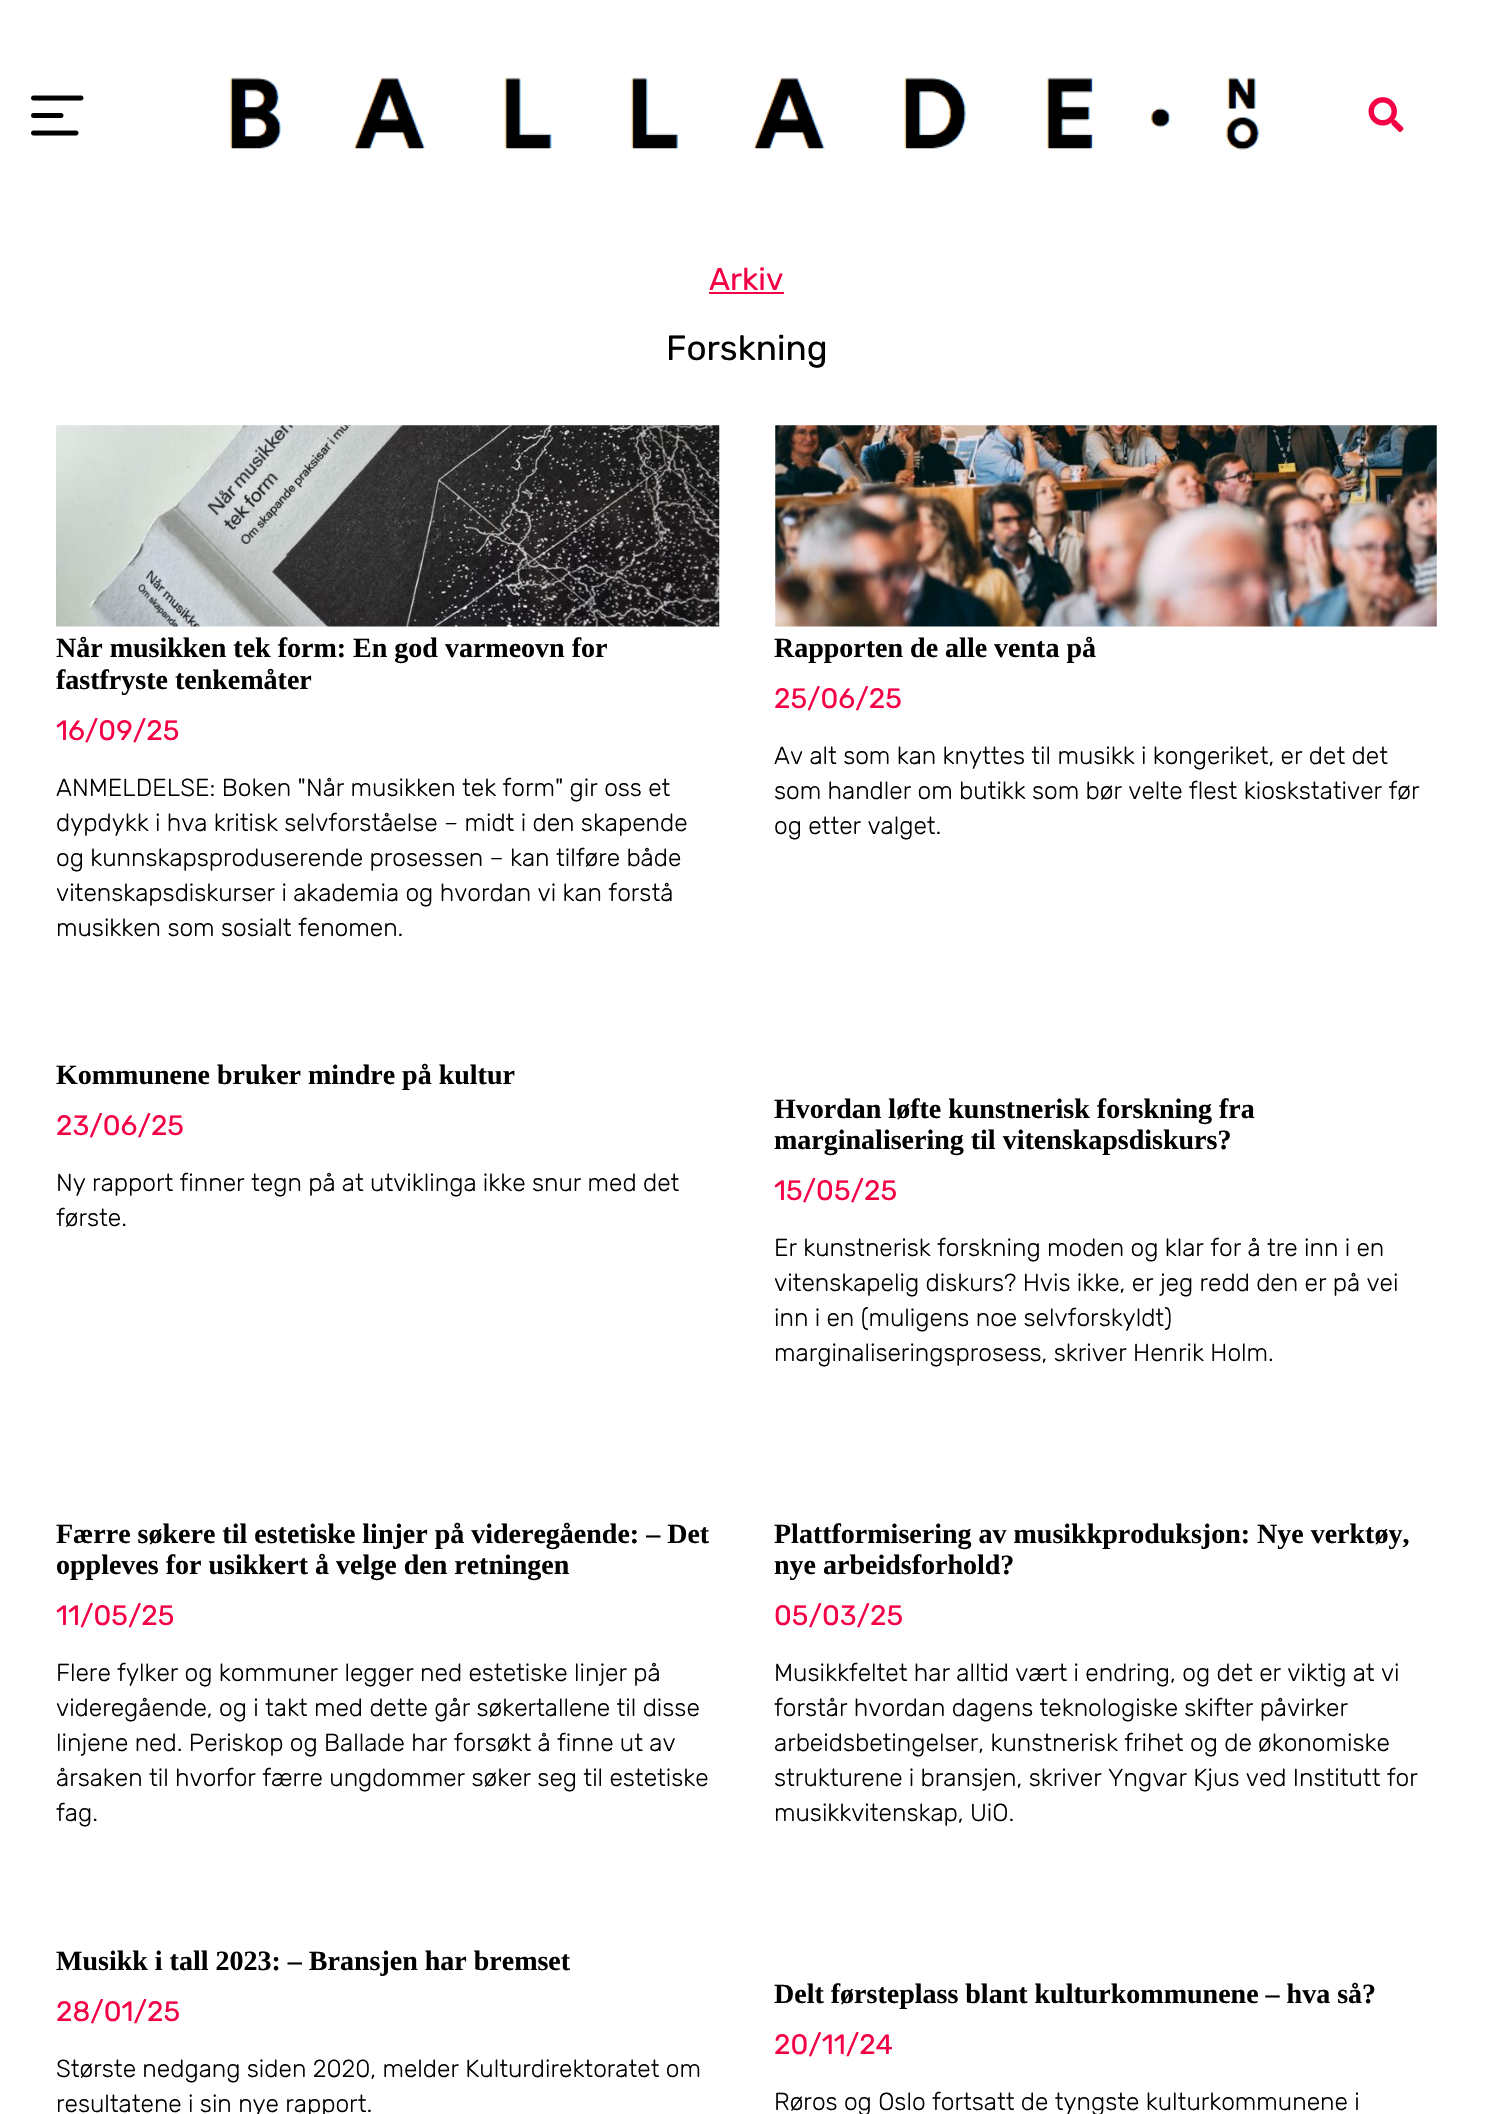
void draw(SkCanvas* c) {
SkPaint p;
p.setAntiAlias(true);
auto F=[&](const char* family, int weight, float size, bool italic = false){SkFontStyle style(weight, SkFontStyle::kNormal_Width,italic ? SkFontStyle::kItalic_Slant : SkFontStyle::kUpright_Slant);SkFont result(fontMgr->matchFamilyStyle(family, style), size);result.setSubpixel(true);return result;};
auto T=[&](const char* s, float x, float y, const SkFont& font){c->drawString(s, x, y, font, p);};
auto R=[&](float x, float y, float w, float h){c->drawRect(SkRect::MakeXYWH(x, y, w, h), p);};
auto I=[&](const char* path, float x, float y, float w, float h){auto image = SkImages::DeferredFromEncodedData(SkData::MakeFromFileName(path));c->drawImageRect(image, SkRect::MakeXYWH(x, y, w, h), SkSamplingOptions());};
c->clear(0xffffffff);
I("1.png",31,95,53,41);
I("2.png",230,77,1030,73);
I("3.png",1368,97,36,36);
auto f1 = F("Rubik",400,31.5);
p.setColor(0xfff40045);
T("Arkiv",709,290,f1);
R(709,292,75,2);
auto f2 = F("Rubik",400,35);
p.setColor(0xff000000);
T("Forskning",666,360,f2);
I("4.png",56,425,664,202);
auto f3 = F("Liberation Serif",700,28);
T("Når musikken tek form: En god varmeovn for",56,657,f3);
T("fastfryste tenkemåter",56,689,f3);
auto f4 = F("Rubik",400,28);
p.setColor(0xfff40045);
T("16/09/25",56,740,f4);
auto f5 = F("Rubik",300,24.5);
p.setColor(0xff000000);
T("ANMELDELSE: Boken \"Når musikken tek form\" gir oss et",56,796,f5);
T("dypdykk i hva kritisk selvforståelse – midt i den skapende",56,831,f5);
T("og kunnskapsproduserende prosessen – kan tilføre både",56,866,f5);
T("vitenskapsdiskurser i akademia og hvordan vi kan forstå",56,901,f5);
T("musikken som sosialt fenomen.",56,936,f5);
I("5.png",775,425,662,202);
T("Rapporten de alle venta på",774,657,f3);
p.setColor(0xfff40045);
T("25/06/25",774,708,f4);
p.setColor(0xff000000);
T("Av alt som kan knyttes til musikk i kongeriket, er det det",774,764,f5);
T("som handler om butikk som bør velte flest kioskstativer før",774,799,f5);
T("og etter valget.",774,834,f5);
T("Kommunene bruker mindre på kultur",56,1084,f3);
p.setColor(0xfff40045);
T("23/06/25",56,1135,f4);
p.setColor(0xff000000);
T("Ny rapport finner tegn på at utviklinga ikke snur med det",56,1191,f5);
T("første.",56,1226,f5);
T("Hvordan løfte kunstnerisk forskning fra",774,1118,f3);
T("marginalisering til vitenskapsdiskurs?",774,1149,f3);
p.setColor(0xfff40045);
T("15/05/25",774,1200,f4);
p.setColor(0xff000000);
T("Er kunstnerisk forskning moden og klar for å tre inn i en",774,1256,f5);
T("vitenskapelig diskurs? Hvis ikke, er jeg redd den er på vei",774,1291,f5);
T("inn i en (muligens noe selvforskyldt)",774,1326,f5);
T("marginaliseringsprosess, skriver Henrik Holm.",774,1361,f5);
T("Færre søkere til estetiske linjer på videregående: – Det",56,1543,f3);
T("oppleves for usikkert å velge den retningen",56,1574,f3);
p.setColor(0xfff40045);
T("11/05/25",56,1625,f4);
p.setColor(0xff000000);
T("Flere fylker og kommuner legger ned estetiske linjer på",56,1681,f5);
T("videregående, og i takt med dette går søkertallene til disse",56,1716,f5);
T("linjene ned. Periskop og Ballade har forsøkt å finne ut av",56,1751,f5);
T("årsaken til hvorfor færre ungdommer søker seg til estetiske",56,1786,f5);
T("fag.",56,1821,f5);
T("Plattformisering av musikkproduksjon: Nye verktøy,",774,1543,f3);
T("nye arbeidsforhold?",774,1574,f3);
p.setColor(0xfff40045);
T("05/03/25",774,1625,f4);
p.setColor(0xff000000);
T("Musikkfeltet har alltid vært i endring, og det er viktig at vi",774,1681,f5);
T("forstår hvordan dagens teknologiske skifter påvirker",774,1716,f5);
T("arbeidsbetingelser, kunstnerisk frihet og de økonomiske",774,1751,f5);
T("strukturene i bransjen, skriver Yngvar Kjus ved Institutt for",774,1786,f5);
T("musikkvitenskap, UiO.",774,1821,f5);
T("Musikk i tall 2023: – Bransjen har bremset",56,1970,f3);
p.setColor(0xfff40045);
T("28/01/25",56,2021,f4);
p.setColor(0xff000000);
T("Største nedgang siden 2020, melder Kulturdirektoratet om",56,2077,f5);
T("resultatene i sin nye rapport.",56,2112,f5);
T("Delt førsteplass blant kulturkommunene – hva så?",774,2003,f3);
p.setColor(0xfff40045);
T("20/11/24",774,2054,f4);
p.setColor(0xff000000);
T("Røros og Oslo fortsatt de tyngste kulturkommunene i",774,2110,f5);
}
